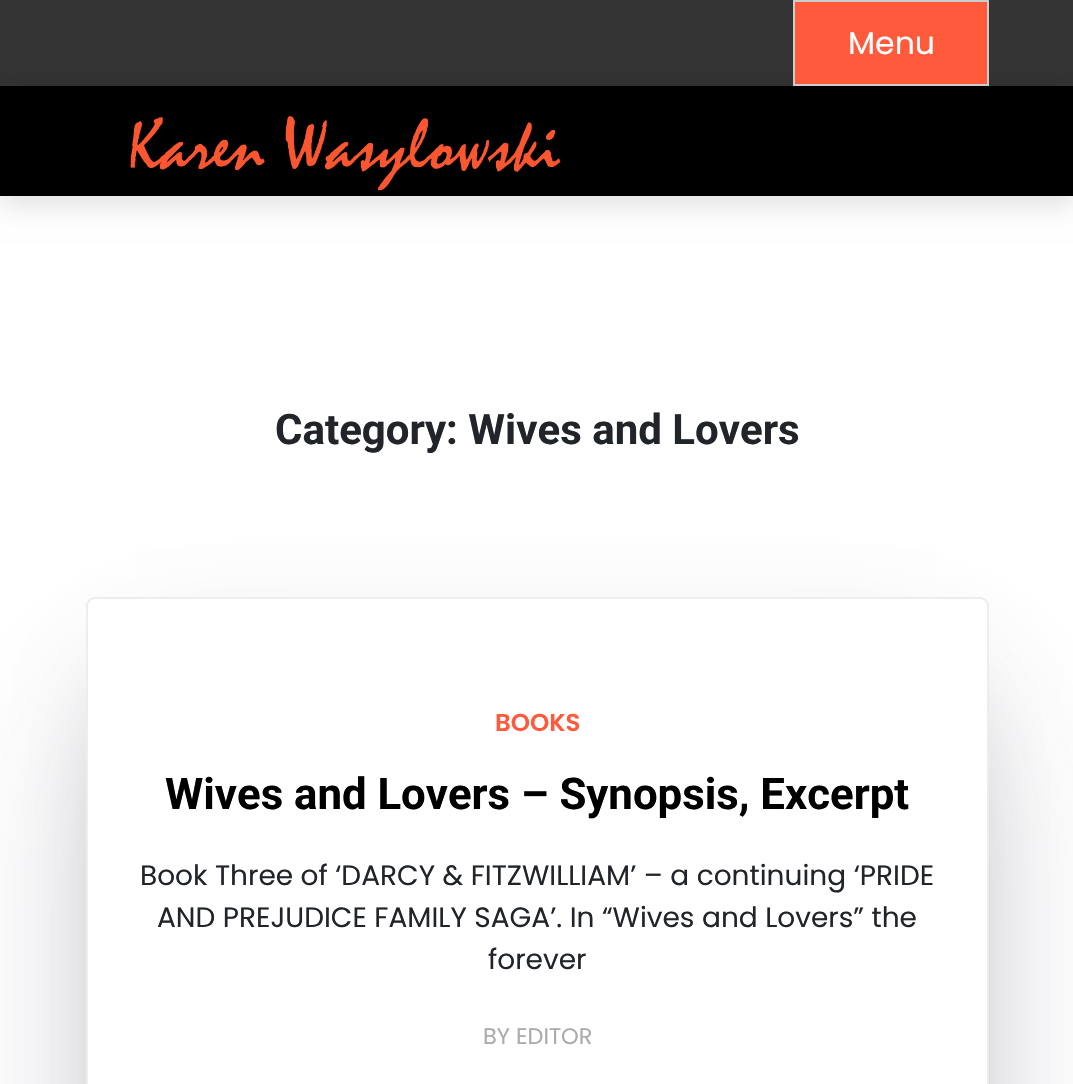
void draw(SkCanvas* c) {
SkPaint p;
p.setAntiAlias(true);
auto F=[&](const char* family, int weight, float size, bool italic = false){SkFontStyle style(weight, SkFontStyle::kNormal_Width,italic ? SkFontStyle::kItalic_Slant : SkFontStyle::kUpright_Slant);SkFont result(fontMgr->matchFamilyStyle(family, style), size);result.setSubpixel(true);return result;};
auto T=[&](const char* s, float x, float y, const SkFont& font){c->drawString(s, x, y, font, p);};
auto R=[&](float x, float y, float w, float h){c->drawRect(SkRect::MakeXYWH(x, y, w, h), p);};
auto I=[&](const char* path, float x, float y, float w, float h){auto image = SkImages::DeferredFromEncodedData(SkData::MakeFromFileName(path));c->drawImageRect(image, SkRect::MakeXYWH(x, y, w, h), SkSamplingOptions());};
auto P=[&](const char* data, bool evenOdd = false){SkPath result = *SkParsePath::FromSVGString(data);if (evenOdd) result.setFillType(SkPathFillType::kEvenOdd);return result;};
c->clear(0xffffffff);
p.setColor(0xff333333);
R(0,0,1073,86);
p.setColor(0x1f000000);
p.setMaskFilter(SkMaskFilter::MakeBlur(kNormal_SkBlurStyle, 13));
c->drawRect(SkRect::MakeXYWH(0,95,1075,110),p);
p.setMaskFilter(nullptr);
p.setColor(0xffff5a3c);
c->drawRect(SkRect::MakeXYWH(794,1,194,84),p);
p.setStroke(true);
p.setStrokeWidth(2);
p.setColor(0xffcccccc);
c->drawRect(SkRect::MakeXYWH(794,1,194,84),p);
auto f1 = F("Poppins",400,31.5);
p.setStroke(false);
p.setColor(0xffffffff);
T("Menu",848,54,f1);
p.setColor(0xff000000);
R(0,86,1073,110);
I("1.png",130,116,431,75);
auto f2 = F("Roboto",700,42);
p.setColor(0xff212529);
T("Category: Wives and Lovers",275,444,f2);
c->save();
c->clipPath(P("M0 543h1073v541h-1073zm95 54h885c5 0 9 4 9 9v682c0 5-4 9-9 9h-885c-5 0-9-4-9-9v-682c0-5 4-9 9-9z",true),true);
p.setColor(0x4d000000);
p.setMaskFilter(SkMaskFilter::MakeBlur(kNormal_SkBlurStyle, 52.5));
c->drawRect(SkRect::MakeXYWH(138,702,798,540),p);
p.setMaskFilter(nullptr);
c->restore();
c->save();
c->clipPath(P("M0 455h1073v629h-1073zm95 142h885c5 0 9 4 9 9v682c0 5-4 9-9 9h-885c-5 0-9-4-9-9v-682c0-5 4-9 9-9z",true),true);
p.setColor(0x4032325d);
p.setMaskFilter(SkMaskFilter::MakeBlur(kNormal_SkBlurStyle, 87.5));
c->drawRect(SkRect::MakeXYWH(121,719,833,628),p);
p.setMaskFilter(nullptr);
c->restore();
p.setStroke(true);
p.setColor(0xffededed);
c->drawRoundRect(SkRect::MakeXYWH(87,598,901,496),8,8,p);
auto f3 = F("Poppins",600,24.5);
p.setStroke(false);
p.setColor(0xffff5a3c);
T("BOOKS",495,731,f3);
auto f4 = F("Roboto",700,43.75);
p.setColor(0xff000000);
T("Wives and Lovers – Synopsis, Excerpt",165,809,f4);
auto f5 = F("Poppins",400,28);
p.setColor(0xff212529);
T("Book Three of ‘DARCY & FITZWILLIAM’ – a continuing ‘PRIDE",140,885,f5);
T("AND PREJUDICE FAMILY SAGA’. In “Wives and Lovers” the",157,927,f5);
T("forever",488,969,f5);
auto f6 = F("Poppins",400,22.5);
p.setColor(0xffababab);
T("BY EDITOR",483,1044,f6);
}
